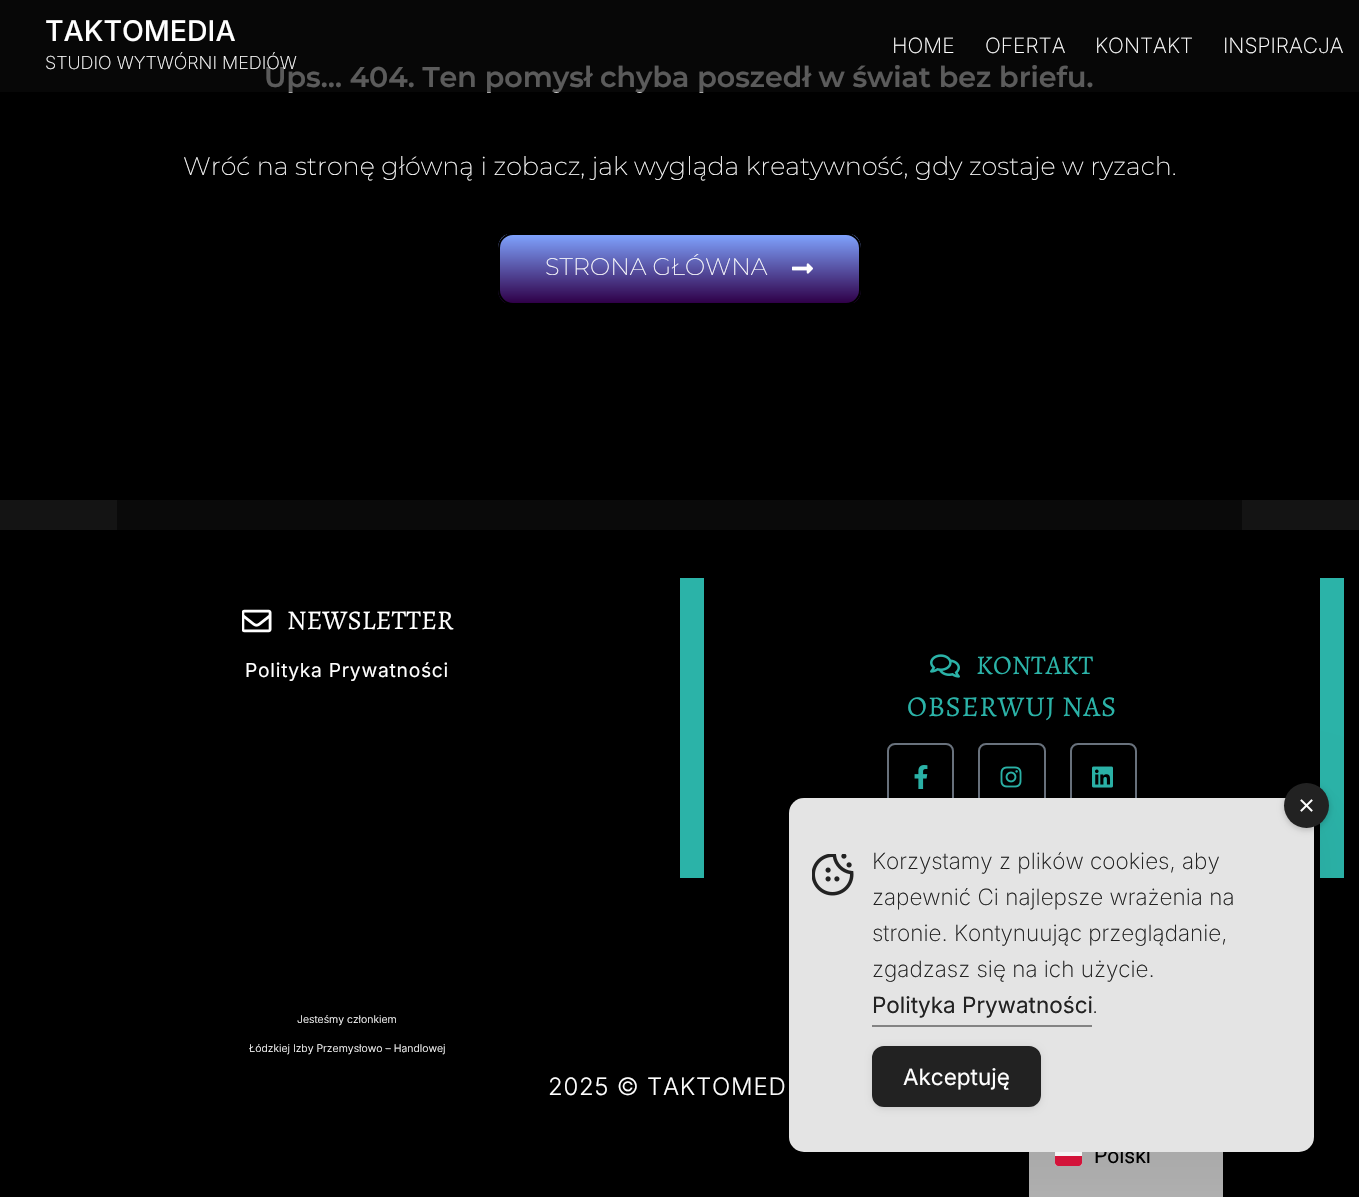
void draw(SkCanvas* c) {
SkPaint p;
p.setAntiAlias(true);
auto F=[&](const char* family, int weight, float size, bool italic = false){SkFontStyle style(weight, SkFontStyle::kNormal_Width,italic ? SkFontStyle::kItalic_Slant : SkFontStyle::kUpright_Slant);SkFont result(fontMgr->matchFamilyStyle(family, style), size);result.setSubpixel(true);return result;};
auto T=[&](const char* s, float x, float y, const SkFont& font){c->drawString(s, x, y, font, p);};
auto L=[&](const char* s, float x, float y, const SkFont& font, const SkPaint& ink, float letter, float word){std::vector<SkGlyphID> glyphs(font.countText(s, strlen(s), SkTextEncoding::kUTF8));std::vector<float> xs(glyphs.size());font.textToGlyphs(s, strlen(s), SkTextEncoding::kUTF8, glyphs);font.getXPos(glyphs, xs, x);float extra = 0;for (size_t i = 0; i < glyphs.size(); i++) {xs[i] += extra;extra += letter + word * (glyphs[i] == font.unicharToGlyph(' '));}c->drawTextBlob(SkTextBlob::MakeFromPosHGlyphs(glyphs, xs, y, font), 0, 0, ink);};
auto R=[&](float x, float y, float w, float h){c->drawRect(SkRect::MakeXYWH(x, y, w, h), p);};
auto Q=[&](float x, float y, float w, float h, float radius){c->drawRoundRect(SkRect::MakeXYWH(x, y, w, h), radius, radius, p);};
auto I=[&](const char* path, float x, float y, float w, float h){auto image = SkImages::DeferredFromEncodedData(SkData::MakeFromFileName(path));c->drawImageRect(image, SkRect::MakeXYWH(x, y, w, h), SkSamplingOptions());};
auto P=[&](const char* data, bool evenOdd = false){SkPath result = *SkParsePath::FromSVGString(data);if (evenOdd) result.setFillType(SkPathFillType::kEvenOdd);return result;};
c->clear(0xff141414);
p.setColor(0xff000000);
R(0,0,1359,500);
c->save();
c->clipPath(P("M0 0h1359v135h-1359zm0 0h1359v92h-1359z",true),true);
p.setColor(0x1a000000);
p.setMaskFilter(SkMaskFilter::MakeBlur(kNormal_SkBlurStyle, 12));
c->drawRect(SkRect::MakeXYWH(0,6,1359,92),p);
p.setMaskFilter(nullptr);
c->restore();
auto f1 = F("Montserrat",600,28.5);
p.setColor(0xffffffff);
T("Ups… 404. Ten pomysł chyba poszedł w świat bez briefu.",264,87,f1);
p.setColor(0xab0a0a0a);
R(0,0,1359,92);
auto f2 = F("Inter",500,28.5);
p.setColor(0xffffffff);
T("TAKTOMEDIA",45,41,f2);
auto f3 = F("Inter",200,18);
T("STUDIO WYTWÓRNI MEDIÓW",45,69,f3);
auto f4 = F("Inter",200,21);
T("HOME",892,53,f4);
T("OFERTA",985,53,f4);
T("KONTAKT",1095,53,f4);
T("INSPIRACJA",1223,53,f4);
p.setColor(0xff0a0a0a);
R(117,500,1125,30);
auto f5 = F("Montserrat",200,25.5);
p.setColor(0xffffffff);
T("Wróć na stronę główną i zobacz, jak wygląda kreatywność, gdy zostaje w ryzach.",183,175,f5);
c->save();
c->clipPath(P("M513 233h333c8.5 0 15 6.5 15 15v42c0 8.5-6.5 15-15 15h-333c-8.5 0-15-6.5-15-15v-42c0-8.5 6.5-15 15-15z"),true);
{
const SkColor colors[] = {0xff80a4ff,0xff2f0048};
const float stops[] = {0,1};
const SkPoint ends[] = {{680,234}, {680,303}};
p.setShader(SkGradientShader::MakeLinear(ends, colors, stops, 2, SkTileMode::kClamp));
p.setAlpha(255);
}
R(498,234,363,69);
c->restore();
p.setStroke(true);
p.setStrokeWidth(2);
p.setShader(nullptr);
p.setColor(0xff000000);
c->drawRoundRect(SkRect::MakeXYWH(499,234,361,70),14,14,p);
auto f6 = F("Montserrat",200,24);
p.setStroke(false);
p.setColor(0xffffffff);
T("STRONA GŁÓWNA",545,275,f6);
I("1.png",792,263,21,11);
p.setColor(0xff000000);
R(0,530,1359,667);
I("2.png",242,609,30,24);
auto f7 = F("Alegreya",400,27);
p.setColor(0xffffffff);
T("NEWSLETTER",287,629,f7);
auto f8 = F("Inter",400,19.25);
L("Polityka Prywatności",245,677,f8,p,.75,0);
p.setColor(0xff2bb3a8);
R(1320,578,24,300);
R(680,578,24,300);
I("3.png",930,654,30,24);
T("KONTAKT",976,674,f7);
auto f9 = F("Alegreya",400,28.75);
L("OBSERWUJ NAS",907,716,f9,p,.75,0);
p.setStroke(true);
p.setColor(0xff69727d);
c->drawRoundRect(SkRect::MakeXYWH(888,744,65,65),7,7,p);
I("4.png",914,765,14,24);
c->drawRoundRect(SkRect::MakeXYWH(979,744,66,65),7,7,p);
I("5.png",1000,766,22,22);
c->drawRoundRect(SkRect::MakeXYWH(1071,744,65,65),7,7,p);
I("6.png",1092,766,21,22);
auto f10 = F("Inter",300,10.5);
p.setStroke(false);
p.setColor(0xffffffff);
T("Jesteśmy członkiem",297,1023,f10);
T("Łódzkiej Izby Przemysłowo – Handlowej",249,1052,f10);
auto f11 = F("Inter",300,24);
L("2025 © TAKTOMED",548,1095,f11,p,.75,0);
p.setColor(0xffb2b2b2);
R(1029,1152,194,45);
p.setColor(0xffffffff);
Q(1055,1146,27,20,3);
p.setColor(0xffdc143c);
c->drawPath(P("M1055 1156h27v7c0 1.5-1.5 3-3 3h-21c-1.5 0-3-1.5-3-3z"),p);
p.setColor(0x0d000000);
p.setMaskFilter(SkMaskFilter::MakeBlur(kNormal_SkBlurStyle, 30));
c->drawRoundRect(SkRect::MakeXYWH(774,798,555,384),30,30,p);
p.setMaskFilter(nullptr);
auto f12 = F("Roboto",400,21);
p.setColor(0xff000000);
T("Polski",1094,1163,f12);
p.setColor(0xffe4e4e4);
Q(789,798,525,354,15);
p.setColor(0x33000000);
p.setMaskFilter(SkMaskFilter::MakeBlur(kNormal_SkBlurStyle, 3));
c->drawRoundRect(SkRect::MakeXYWH(1284,785,45,45),22.5,22.5,p);
p.setMaskFilter(nullptr);
p.setColor(0xff222222);
c->drawCircle(1306.5,805.5,22.5,p);
I("7.png",1300,799,13,13);
I("8.png",812,854,42,42);
auto f13 = F("Inter",200,22.5);
T("Korzystamy z plików cookies, aby",872,869,f13);
T("zapewnić Ci najlepsze wrażenia na",872,905,f13);
T("stronie. Kontynuując przeglądanie,",872,941,f13);
T("zgadzasz się na ich użycie.",872,977,f13);
auto f14 = F("Inter",400,22.5);
T("Polityka Prywatności",872,1013,f14);
p.setColor(0xff838383);
R(872,1025,220,2);
p.setColor(0xff222222);
T(".",1092,1013,f13);
p.setColor(0x1a000000);
p.setMaskFilter(SkMaskFilter::MakeBlur(kNormal_SkBlurStyle, 3));
c->drawRoundRect(SkRect::MakeXYWH(872,1047,169,62),12,12,p);
p.setMaskFilter(nullptr);
p.setColor(0xff222222);
c->drawRoundRect(SkRect::MakeXYWH(873,1047,167,59),11,11,p);
p.setStroke(true);
c->drawRoundRect(SkRect::MakeXYWH(873,1047,167,59),11,11,p);
p.setStroke(false);
p.setColor(0xffffffff);
T("Akceptuję",903,1085,f14);
}
